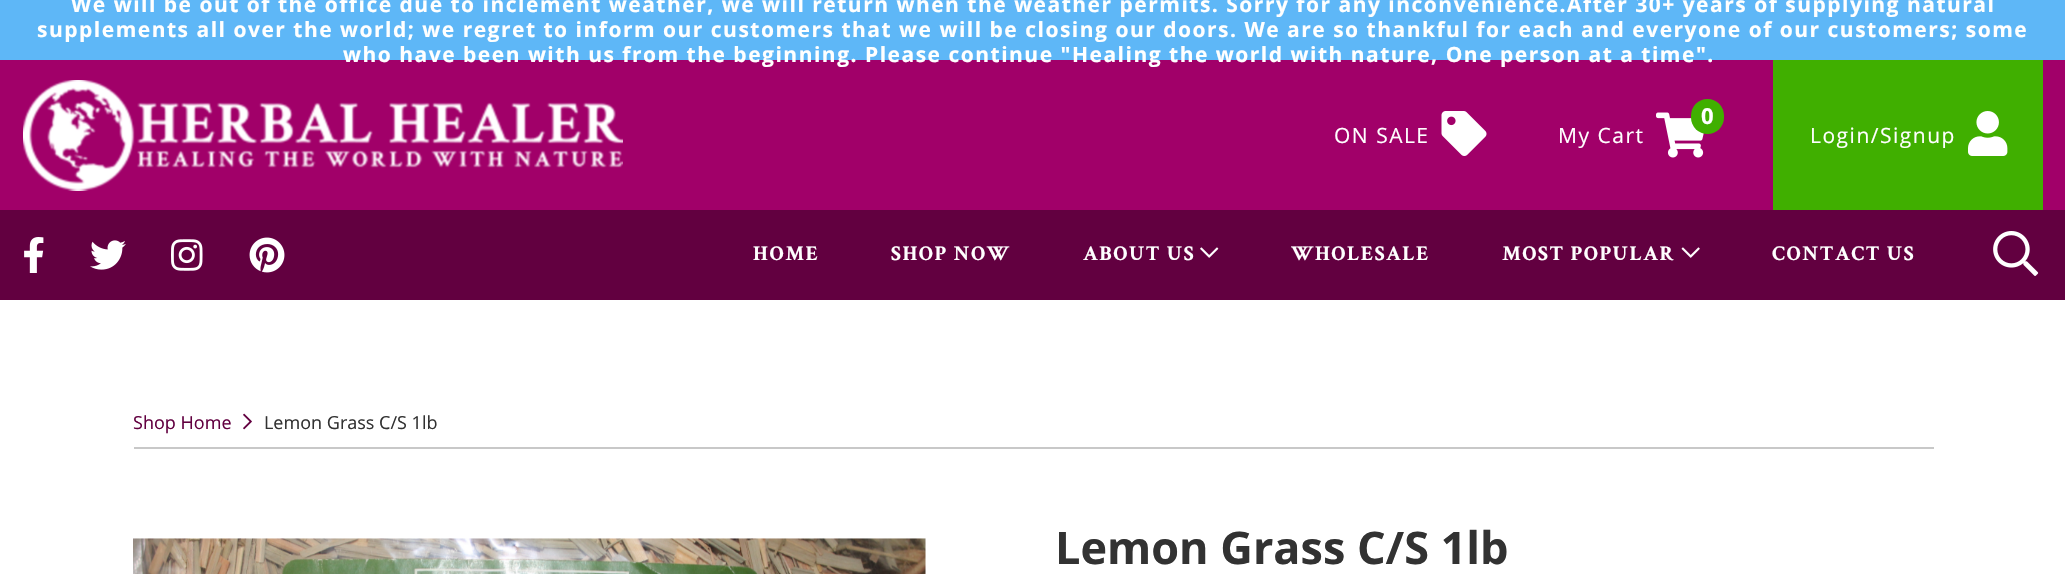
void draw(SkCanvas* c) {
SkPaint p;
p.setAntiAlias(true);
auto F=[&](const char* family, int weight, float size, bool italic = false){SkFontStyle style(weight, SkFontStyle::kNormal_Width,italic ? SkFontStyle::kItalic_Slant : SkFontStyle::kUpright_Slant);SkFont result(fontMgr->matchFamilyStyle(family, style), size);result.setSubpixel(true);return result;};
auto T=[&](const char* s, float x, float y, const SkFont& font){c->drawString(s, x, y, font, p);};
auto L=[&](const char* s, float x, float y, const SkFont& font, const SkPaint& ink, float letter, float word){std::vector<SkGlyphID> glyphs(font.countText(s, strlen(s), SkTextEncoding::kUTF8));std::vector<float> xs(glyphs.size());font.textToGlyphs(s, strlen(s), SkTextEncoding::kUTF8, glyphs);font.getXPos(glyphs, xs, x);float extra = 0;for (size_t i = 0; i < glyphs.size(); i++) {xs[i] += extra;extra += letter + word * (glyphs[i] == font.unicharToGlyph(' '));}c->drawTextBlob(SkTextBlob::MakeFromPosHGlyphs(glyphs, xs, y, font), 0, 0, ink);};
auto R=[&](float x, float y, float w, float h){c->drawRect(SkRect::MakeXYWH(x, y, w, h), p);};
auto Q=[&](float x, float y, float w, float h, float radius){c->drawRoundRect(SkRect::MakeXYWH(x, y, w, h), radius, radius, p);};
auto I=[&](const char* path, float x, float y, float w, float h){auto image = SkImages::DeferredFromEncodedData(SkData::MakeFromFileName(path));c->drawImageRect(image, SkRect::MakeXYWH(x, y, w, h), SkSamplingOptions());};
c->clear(0xffffffff);
p.setColor(0xff5eb7f7);
R(0,0,2065,60);
auto f1 = F("Open Sans",700,21);
p.setColor(0xffffffff);
L("We will be out of the office due to inclement weather, we will return when the weather permits. Sorry for any inconvenience.After 30+ years of supplying natural",71,12,f1,p,1.5,0);
L("supplements all over the world; we regret to inform our customers that we will be closing our doors. We are so thankful for each and everyone of our customers; some",37,37,f1,p,1.5,0);
p.setColor(0xffa10069);
R(0,60,2065,150);
p.setColor(0xffffffff);
L("who have been with us from the beginning. Please continue \"Healing the world with nature, One person at a time\".",343,62,f1,p,1.5,0);
I("1.png",23,80,600,111);
auto f2 = F("Open Sans",400,21);
L("ON SALE",1334,143,f2,p,1.5,0);
I("2.png",1441,111,46,45);
I("3.png",1656,112,48,46);
p.setColor(0xff40af00);
Q(1691,99,33,35,16.5);
auto f3 = F("Open Sans",700,22);
p.setColor(0xffffffff);
T("0",1701,124,f3);
L("My Cart",1558,143,f2,p,1.5,0);
p.setColor(0xff40af00);
R(1773,60,270,150);
p.setColor(0xffffffff);
L("Login/Signup",1810,143,f2,p,1.5,0);
I("4.png",1968,111,40,45);
p.setColor(0xff620040);
R(0,210,2065,90);
I("5.png",24,237,20,36);
I("6.png",90,240,36,30);
I("7.png",171,239,32,32);
I("8.png",249,237,36,36);
auto f4 = F("Crimson Text",700,21);
p.setColor(0xffffffff);
L("HOME",753,260,f4,p,1.5,0);
L("SHOP NOW",891,260,f4,p,1.5,0);
L("ABOUT US",1083,260,f4,p,1.5,0);
I("9.png",1200,247,19,11);
L("WHOLESALE",1291,260,f4,p,1.5,0);
L("MOST POPULAR",1502,260,f4,p,1.5,0);
I("10.png",1681,247,19,11);
L("CONTACT US",1772,260,f4,p,1.5,0);
I("11.png",1993,231,46,45);
p.setColor(0xffc8c8c8);
R(134,447,1800,2);
auto f5 = F("Open Sans",400,18);
p.setColor(0xff620040);
T("Shop Home",133,429,f5);
I("12.png",243,413,9,17);
p.setColor(0xff323232);
T("Lemon Grass C/S 1lb",264,429,f5);
I("13.png",133,538,793,36);
auto f6 = F("Open Sans",700,45);
T("Lemon Grass C/S 1lb",1055,564,f6);
}
